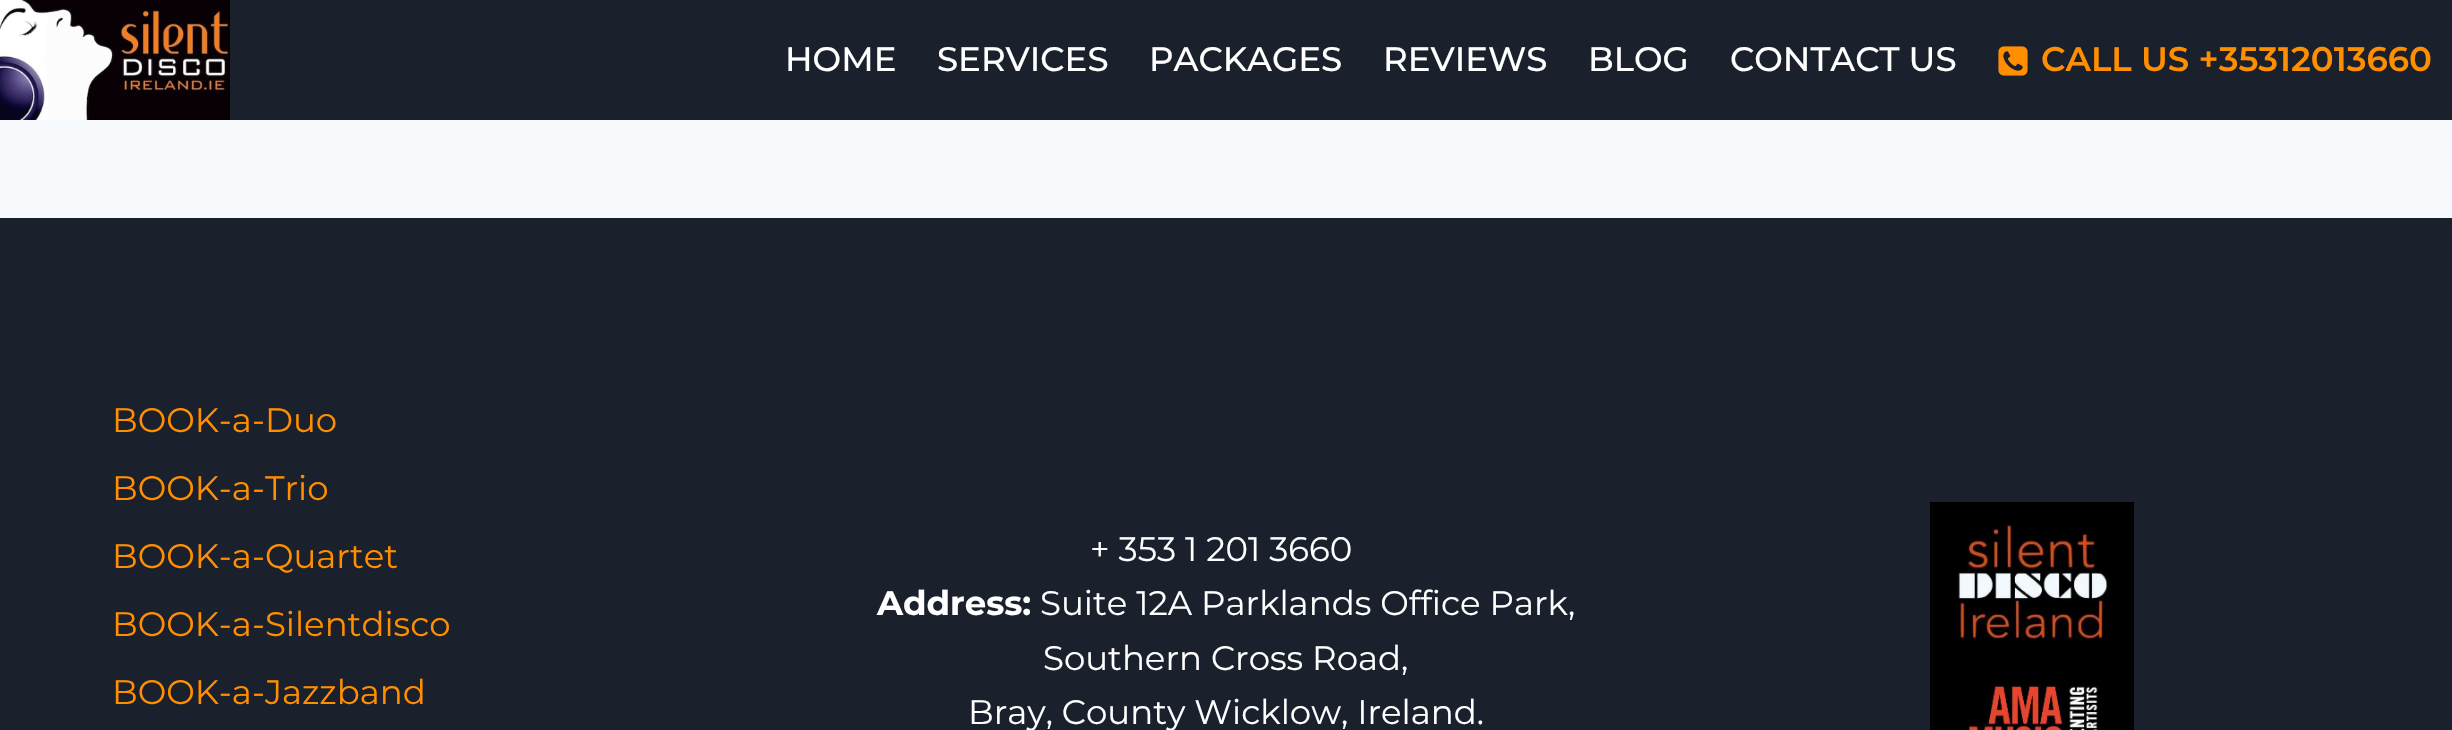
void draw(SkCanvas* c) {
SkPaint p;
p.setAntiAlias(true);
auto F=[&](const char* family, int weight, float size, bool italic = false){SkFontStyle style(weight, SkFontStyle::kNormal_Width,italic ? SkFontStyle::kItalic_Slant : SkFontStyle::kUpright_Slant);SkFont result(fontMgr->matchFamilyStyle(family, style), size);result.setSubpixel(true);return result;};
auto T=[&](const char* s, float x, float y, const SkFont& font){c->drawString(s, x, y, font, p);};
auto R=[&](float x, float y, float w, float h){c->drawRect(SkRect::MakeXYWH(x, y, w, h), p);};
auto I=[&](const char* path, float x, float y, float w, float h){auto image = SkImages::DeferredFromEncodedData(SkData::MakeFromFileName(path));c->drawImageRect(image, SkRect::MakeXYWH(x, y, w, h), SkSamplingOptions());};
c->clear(0xfff7fafc);
p.setColor(0xff1a202c);
R(230,0,2222,120);
I("1.png",0,0,230,120);
auto f1 = F("Montserrat",500,34);
p.setColor(0xffffffff);
T("HOME",785,71,f1);
T("SERVICES",937,71,f1);
T("PACKAGES",1149,71,f1);
T("REVIEWS",1383,71,f1);
T("BLOG",1588,71,f1);
T("CONTACT US",1730,71,f1);
I("2.png",1998,46,30,30);
auto f2 = F("Montserrat",600,34);
p.setColor(0xffff8e00);
T("CALL US +35312013660",2041,71,f2);
p.setColor(0xff1a202c);
R(0,218,2452,512);
auto f3 = F("Montserrat",400,34);
p.setColor(0xffff8e00);
T("BOOK-a-Duo",112,432,f3);
T("BOOK-a-Trio",112,500,f3);
T("BOOK-a-Quartet",112,568,f3);
T("BOOK-a-Silentdisco",112,636,f3);
T("BOOK-a-Jazzband",112,704,f3);
p.setColor(0xffffffff);
T("+ 353 1 201 3660",1090,561,f3);
auto f4 = F("Montserrat",700,34);
T("Address:",877,615,f4);
T("Suite 12A Parklands Office Park,",1040,615,f3);
T("Southern Cross Road,",1043,670,f3);
T("Bray, County Wicklow, Ireland.",968,724,f3);
I("3.png",1930,502,204,228);
}
